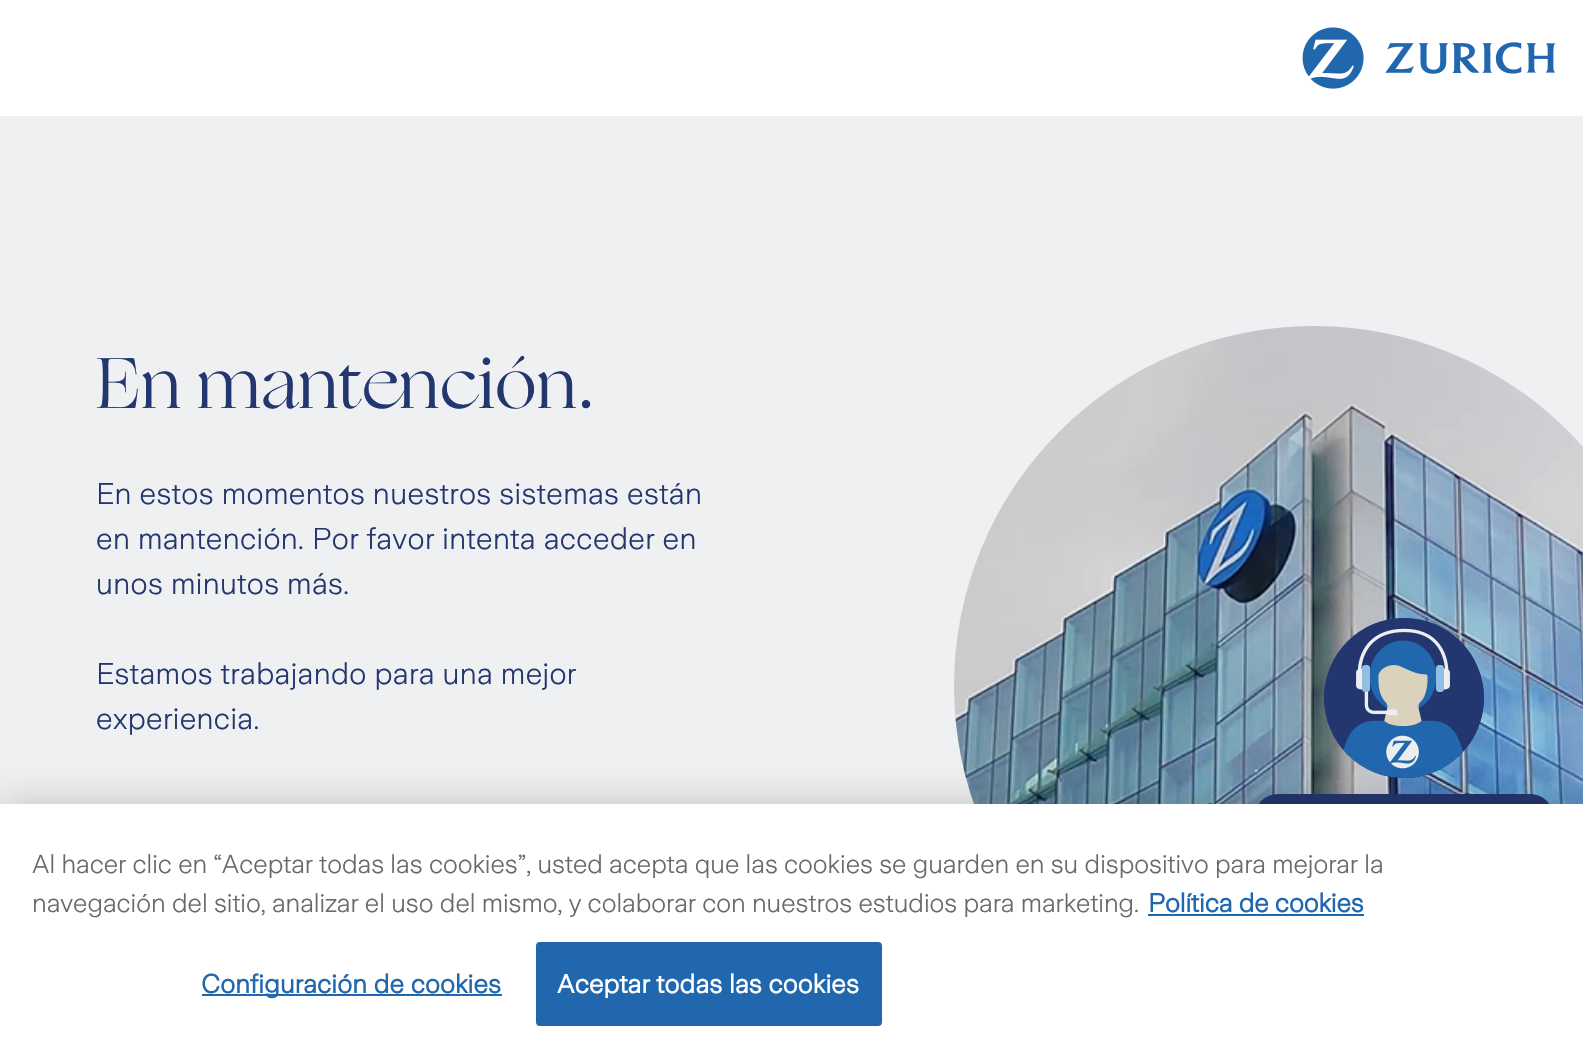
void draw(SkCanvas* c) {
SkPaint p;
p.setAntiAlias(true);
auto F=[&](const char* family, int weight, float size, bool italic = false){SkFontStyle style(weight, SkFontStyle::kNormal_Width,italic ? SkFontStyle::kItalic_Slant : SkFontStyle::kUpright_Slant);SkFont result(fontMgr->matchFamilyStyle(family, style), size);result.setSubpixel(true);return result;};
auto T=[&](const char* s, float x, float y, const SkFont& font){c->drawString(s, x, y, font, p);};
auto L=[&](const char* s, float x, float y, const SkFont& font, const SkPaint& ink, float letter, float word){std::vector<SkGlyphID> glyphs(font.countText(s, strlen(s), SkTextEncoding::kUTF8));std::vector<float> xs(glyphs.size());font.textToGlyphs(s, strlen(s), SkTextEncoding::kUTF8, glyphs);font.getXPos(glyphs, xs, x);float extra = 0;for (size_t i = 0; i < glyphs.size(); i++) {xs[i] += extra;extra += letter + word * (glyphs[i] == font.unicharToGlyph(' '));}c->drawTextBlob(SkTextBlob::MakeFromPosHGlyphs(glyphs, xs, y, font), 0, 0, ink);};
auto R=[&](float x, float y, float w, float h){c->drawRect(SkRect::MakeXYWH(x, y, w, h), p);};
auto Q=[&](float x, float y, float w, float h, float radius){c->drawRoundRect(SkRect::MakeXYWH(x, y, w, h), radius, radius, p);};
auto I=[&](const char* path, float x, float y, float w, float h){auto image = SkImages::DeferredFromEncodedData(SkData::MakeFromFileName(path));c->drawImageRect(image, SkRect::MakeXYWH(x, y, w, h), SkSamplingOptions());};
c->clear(0xffffffff);
I("1.png",1302,27,254,62);
p.setColor(0xffeef0f1);
R(0,116,1583,688);
auto f1 = F("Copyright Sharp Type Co",400,72);
p.setColor(0xff23366f);
T("En mantención.",96,408,f1);
auto f2 = F("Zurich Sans",300,30);
L("En estos momentos nuestros sistemas están",96,504,f2,p,.4,0);
L("en mantención. Por favor intenta acceder en",96,549,f2,p,.4,0);
L("unos minutos más.",96,594,f2,p,.4,0);
L("Estamos trabajando para una mejor",96,684,f2,p,.4,0);
L("experiencia.",96,729,f2,p,.4,0);
I("2.png",954,326,629,478);
c->drawCircle(1404,698,80,p);
I("3.png",1324,618,160,160);
Q(1254,794,300,48,24);
p.setColor(0x33000000);
p.setMaskFilter(SkMaskFilter::MakeBlur(kNormal_SkBlurStyle, 18));
c->drawRect(SkRect::MakeXYWH(0,804,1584,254),p);
p.setMaskFilter(nullptr);
p.setColor(0xffffffff);
R(0,804,1583,253);
auto f3 = F("Zurich Sans",300,26.02);
p.setColor(0xff696969);
T("Al hacer clic en “Aceptar todas las cookies”, usted acepta que las cookies se guarden en su dispositivo para mejorar la",32,873,f3);
T("navegación del sitio, analizar el uso del mismo, y colaborar con nuestros estudios para marketing.",32,912,f3);
auto f4 = F("Zurich Sans",700,26.02);
p.setColor(0xff2167ae);
T("Política de cookies",1148,912,f4);
R(1148,914,216,2);
R(202,994,300,2);
L("Configuración de cookies",201,993,f4,p,.25,0);
c->drawRoundRect(SkRect::MakeXYWH(537,943,344,82),3,3,p);
p.setStroke(true);
p.setStrokeWidth(2);
c->drawRoundRect(SkRect::MakeXYWH(537,943,344,82),3,3,p);
p.setStroke(false);
p.setColor(0xffffffff);
L("Aceptar todas las cookies",557,993,f4,p,.25,0);
}
